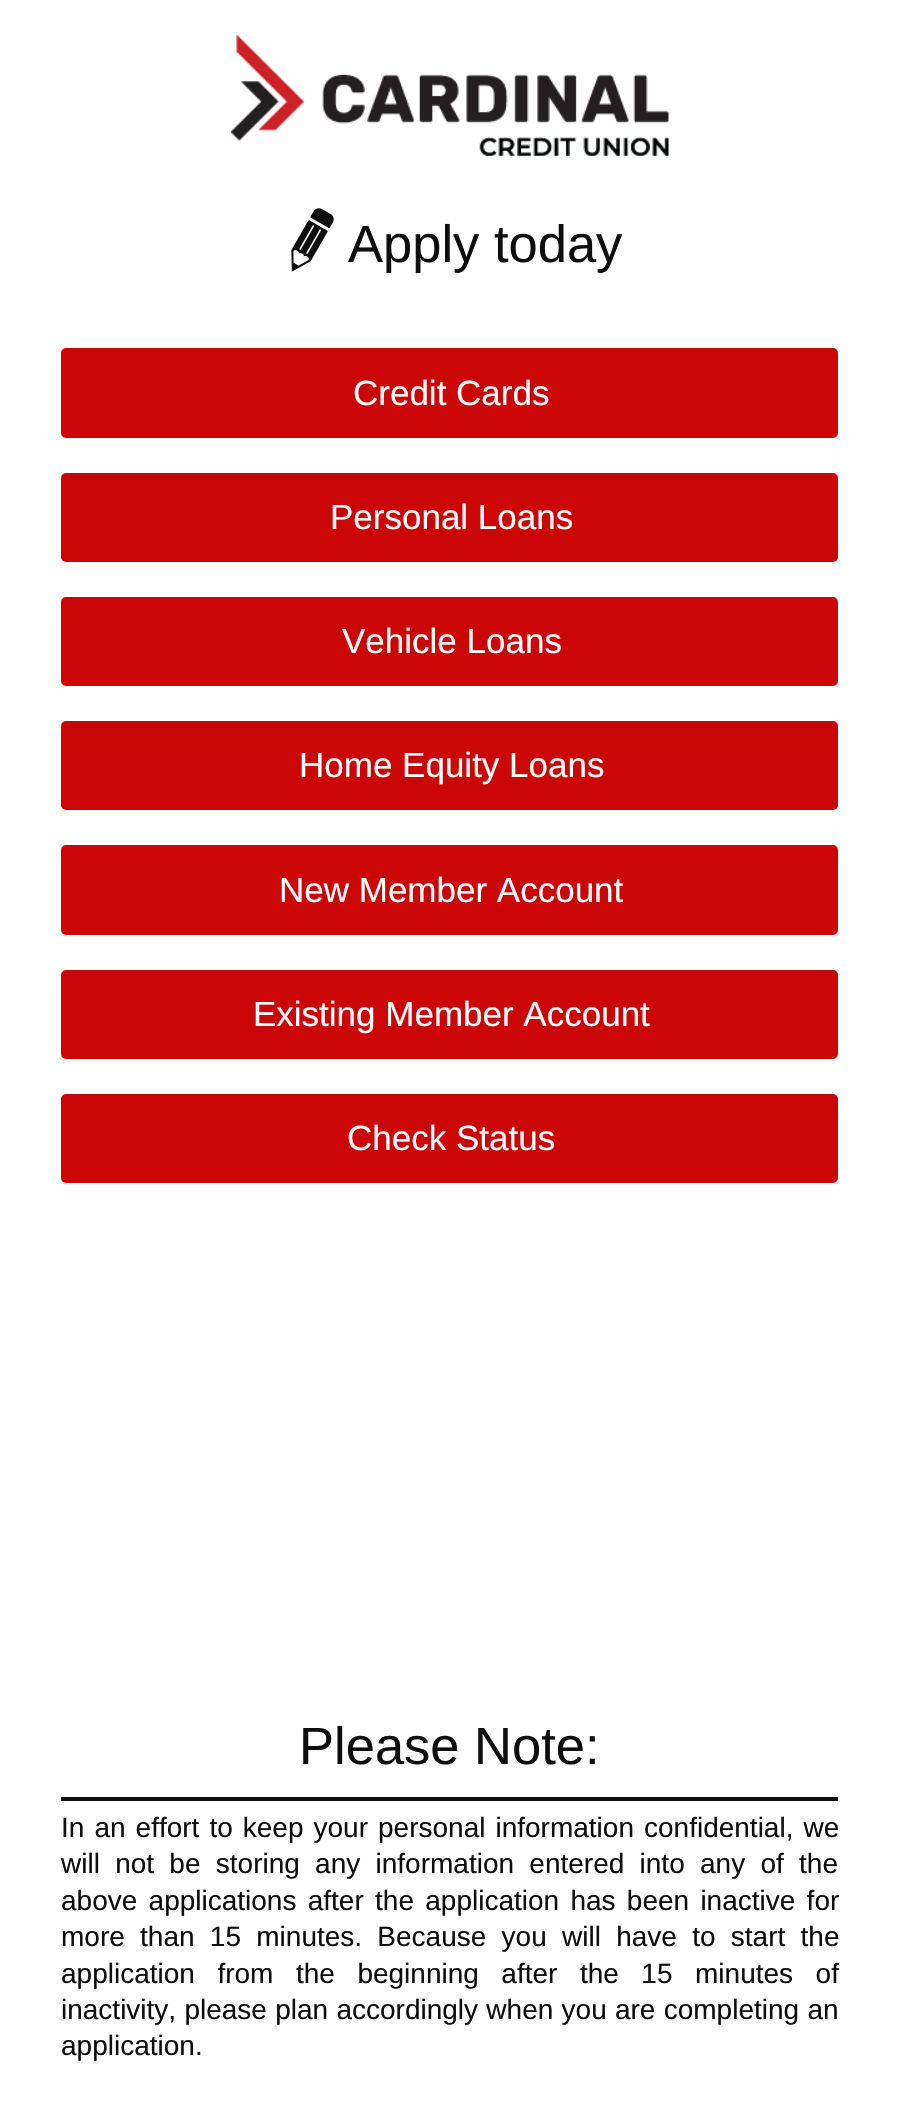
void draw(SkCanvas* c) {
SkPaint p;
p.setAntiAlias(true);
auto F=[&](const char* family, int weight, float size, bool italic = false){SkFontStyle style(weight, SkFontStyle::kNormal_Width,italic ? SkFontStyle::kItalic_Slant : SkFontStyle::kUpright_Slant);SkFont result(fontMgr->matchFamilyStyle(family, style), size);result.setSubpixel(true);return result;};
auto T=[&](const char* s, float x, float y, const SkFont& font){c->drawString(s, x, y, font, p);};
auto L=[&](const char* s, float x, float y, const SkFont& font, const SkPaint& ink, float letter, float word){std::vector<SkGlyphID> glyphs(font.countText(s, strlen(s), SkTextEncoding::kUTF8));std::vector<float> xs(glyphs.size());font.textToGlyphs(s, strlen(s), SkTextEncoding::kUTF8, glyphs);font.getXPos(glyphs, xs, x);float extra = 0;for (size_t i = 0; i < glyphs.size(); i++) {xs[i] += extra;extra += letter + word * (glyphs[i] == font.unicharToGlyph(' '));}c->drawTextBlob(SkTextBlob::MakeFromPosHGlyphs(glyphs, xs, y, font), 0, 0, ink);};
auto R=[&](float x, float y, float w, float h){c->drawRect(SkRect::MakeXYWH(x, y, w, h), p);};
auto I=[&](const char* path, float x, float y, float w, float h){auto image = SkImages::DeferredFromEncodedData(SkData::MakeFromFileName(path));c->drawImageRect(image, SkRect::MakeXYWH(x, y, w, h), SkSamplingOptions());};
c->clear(0xffffffff);
I("1.png",231,35,438,121);
I("2.png",291,208,43,64);
auto f1 = F("Liberation Sans",400,52.5);
p.setColor(0xff0f0e0e);
T("Apply today",348,262,f1);
p.setColor(0xffca0606);
c->drawRoundRect(SkRect::MakeXYWH(62,349,775,88),4,4,p);
p.setStroke(true);
p.setStrokeWidth(2);
c->drawRoundRect(SkRect::MakeXYWH(62,349,775,88),4,4,p);
auto f2 = F("Liberation Sans",400,35);
p.setStroke(false);
p.setColor(0xffffffff);
T("Credit Cards",353,405,f2);
p.setColor(0xffca0606);
c->drawRoundRect(SkRect::MakeXYWH(62,474,775,87),4,4,p);
p.setStroke(true);
c->drawRoundRect(SkRect::MakeXYWH(62,474,775,87),4,4,p);
p.setStroke(false);
p.setColor(0xffffffff);
T("Personal Loans",330,529,f2);
p.setColor(0xffca0606);
c->drawRoundRect(SkRect::MakeXYWH(62,598,775,87),4,4,p);
p.setStroke(true);
c->drawRoundRect(SkRect::MakeXYWH(62,598,775,87),4,4,p);
p.setStroke(false);
p.setColor(0xffffffff);
T("Vehicle Loans",342,653,f2);
p.setColor(0xffca0606);
c->drawRoundRect(SkRect::MakeXYWH(62,722,775,87),4,4,p);
p.setStroke(true);
c->drawRoundRect(SkRect::MakeXYWH(62,722,775,87),4,4,p);
p.setStroke(false);
p.setColor(0xffffffff);
T("Home Equity Loans",299,777,f2);
p.setColor(0xffca0606);
c->drawRoundRect(SkRect::MakeXYWH(62,846,775,88),4,4,p);
p.setStroke(true);
c->drawRoundRect(SkRect::MakeXYWH(62,846,775,88),4,4,p);
p.setStroke(false);
p.setColor(0xffffffff);
T("New Member Account",279,902,f2);
p.setColor(0xffca0606);
c->drawRoundRect(SkRect::MakeXYWH(62,971,775,87),4,4,p);
p.setStroke(true);
c->drawRoundRect(SkRect::MakeXYWH(62,971,775,87),4,4,p);
p.setStroke(false);
p.setColor(0xffffffff);
T("Existing Member Account",253,1026,f2);
p.setColor(0xffca0606);
c->drawRoundRect(SkRect::MakeXYWH(62,1095,775,87),4,4,p);
p.setStroke(true);
c->drawRoundRect(SkRect::MakeXYWH(62,1095,775,87),4,4,p);
p.setStroke(false);
p.setColor(0xffffffff);
T("Check Status",347,1150,f2);
p.setColor(0xff0f0e0e);
R(61,1797,777,4);
T("Please Note:",299,1764,f1);
auto f3 = F("Liberation Sans",400,28);
L("In an effort to keep your personal information confidential, we",61,1837,f3,p,0,2.25);
L("will not be storing any information entered into any of the",61,1873,f3,p,0,7.5);
L("above applications after the application has been inactive for",61,1910,f3,p,0,3.5);
L("more than 15 minutes. Because you will have to start the",61,1946,f3,p,0,7.5);
L("application from the beginning after the 15 minutes of",61,1983,f3,p,0,14.75);
L("inactivity, please plan accordingly when you are completing an",61,2019,f3,p,0,.5);
T("application.",61,2055,f3);
}
